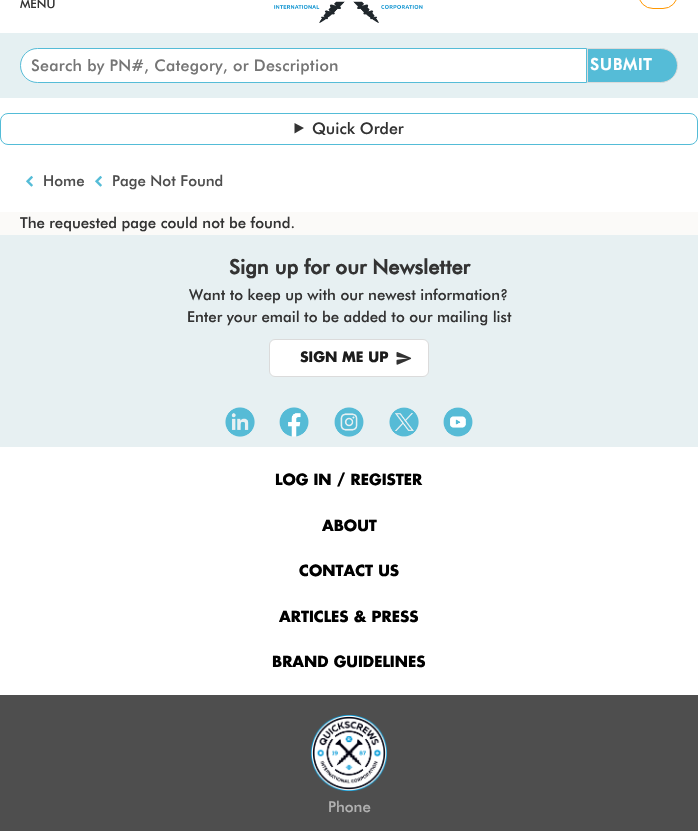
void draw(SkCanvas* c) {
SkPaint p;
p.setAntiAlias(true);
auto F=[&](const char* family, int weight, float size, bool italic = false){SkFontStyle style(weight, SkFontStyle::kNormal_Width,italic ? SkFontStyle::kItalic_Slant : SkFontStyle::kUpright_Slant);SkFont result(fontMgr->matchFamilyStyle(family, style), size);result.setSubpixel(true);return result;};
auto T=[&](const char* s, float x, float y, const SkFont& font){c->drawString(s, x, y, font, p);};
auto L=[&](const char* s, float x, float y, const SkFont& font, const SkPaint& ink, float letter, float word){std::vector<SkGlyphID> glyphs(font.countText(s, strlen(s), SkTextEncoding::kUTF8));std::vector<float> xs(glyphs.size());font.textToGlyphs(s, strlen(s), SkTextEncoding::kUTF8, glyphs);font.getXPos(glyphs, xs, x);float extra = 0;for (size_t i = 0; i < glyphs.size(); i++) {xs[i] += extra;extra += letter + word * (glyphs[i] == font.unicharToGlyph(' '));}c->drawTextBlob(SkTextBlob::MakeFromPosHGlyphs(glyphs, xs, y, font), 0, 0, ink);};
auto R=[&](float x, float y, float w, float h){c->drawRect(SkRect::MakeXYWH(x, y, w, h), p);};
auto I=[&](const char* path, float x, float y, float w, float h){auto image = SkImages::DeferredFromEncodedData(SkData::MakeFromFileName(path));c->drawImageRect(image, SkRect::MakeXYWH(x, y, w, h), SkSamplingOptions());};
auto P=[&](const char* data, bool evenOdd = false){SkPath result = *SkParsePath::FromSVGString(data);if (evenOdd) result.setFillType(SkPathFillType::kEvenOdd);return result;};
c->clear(0xffffffff);
auto f1 = F("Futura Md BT",500,12);
p.setColor(0xff333333);
T("MENU",20,8,f1);
I("1.png",274,1,149,22);
p.setStroke(true);
p.setStrokeWidth(1);
p.setColor(0xffff9700);
c->drawRoundRect(SkRect::MakeXYWH(638.5,-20.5,39,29),19.5,19.5,p);
p.setStroke(false);
p.setColor(0xffe5f0f2);
R(0,33,698,65);
p.setColor(0xffffffff);
c->drawPath(P("M37.5 48.5h549v34h-549c-9.5 0-17-7.5-17-17c0-9.5 7.5-17 17-17z"),p);
p.setStroke(true);
p.setColor(0xff55bcd7);
c->drawPath(P("M37.5 48.5h549v34h-549c-9.5 0-17-7.5-17-17c0-9.5 7.5-17 17-17z"),p);
auto f2 = F("Futura Md BT",500,16);
p.setStroke(false);
p.setColor(0xff757575);
L("Search by PN#, Category, or Description",31,71,f2,p,.25,0);
p.setColor(0xff55bcd7);
c->drawPath(P("M587.5 48.5h73c9.5 0 17 7.5 17 17c0 9.5-7.5 17-17 17h-73z"),p);
p.setStroke(true);
p.setColor(0xffdbdbdb);
c->drawPath(P("M587.5 48.5h73c9.5 0 17 7.5 17 17c0 9.5-7.5 17-17 17h-73z"),p);
auto f3 = F("Futura Md BT",700,16);
p.setStroke(false);
p.setColor(0xffffffff);
L("SUBMIT",590,70,f3,p,1,0);
p.setStroke(true);
p.setColor(0xff54bcd7);
c->drawRoundRect(SkRect::MakeXYWH(.5,113.5,697,31),7.5,7.5,p);
p.setStroke(false);
p.setColor(0xff333333);
c->drawPath(P("M294.5 123l9.5 5l-9.5 5.5z"),p);
T("Quick Order",312,134,f2);
I("2.png",26,175,7,12);
auto f4 = F("Futura Md BT",500,15);
p.setColor(0xff4e4e4e);
T("Home",43,186,f4);
I("2.png",95,175,7,12);
T("Page Not Found",112,186,f4);
p.setColor(0xfffbfaf8);
R(0,212,698,23);
p.setColor(0xff333333);
T("The requested page could not be found.",20,228,f4);
p.setColor(0xffe7f0f2);
R(0,235,698,212);
auto f5 = F("Futura Md BT",700,20);
p.setColor(0xff333333);
T("Sign up for our Newsletter",229,274,f5);
T("Want to keep up with our newest information?",189,300,f4);
T("Enter your email to be added to our mailing list",187,322,f4);
p.setColor(0xffffffff);
c->drawRoundRect(SkRect::MakeXYWH(269.5,339.5,159,37),5.5,5.5,p);
p.setStroke(true);
p.setColor(0xffdbdbdb);
c->drawRoundRect(SkRect::MakeXYWH(269.5,339.5,159,37),5.5,5.5,p);
auto f6 = F("Futura",700,14);
p.setStroke(false);
p.setColor(0xff1c1c1c);
T("SIGN ME UP",300,362,f6);
I("3.png",396,352,16,13);
I("4.png",225,407,30,30);
I("5.png",279,407,30,30);
I("6.png",334,407,30,30);
I("7.png",389,407,30,30);
I("8.png",443,407,30,30);
auto f7 = F("Futura",700,15);
p.setColor(0xff000000);
T("LOG IN / REGISTER",275,485,f7);
T("ABOUT",322,531,f7);
T("CONTACT US",299,576,f7);
T("ARTICLES & PRESS",279,622,f7);
T("BRAND GUIDELINES",272,667,f7);
p.setColor(0xff4e4e4e);
R(0,695,698,136);
I("9.png",311,715,76,76);
p.setColor(0xffb1b1b1);
T("Phone",328,812,f4);
}
